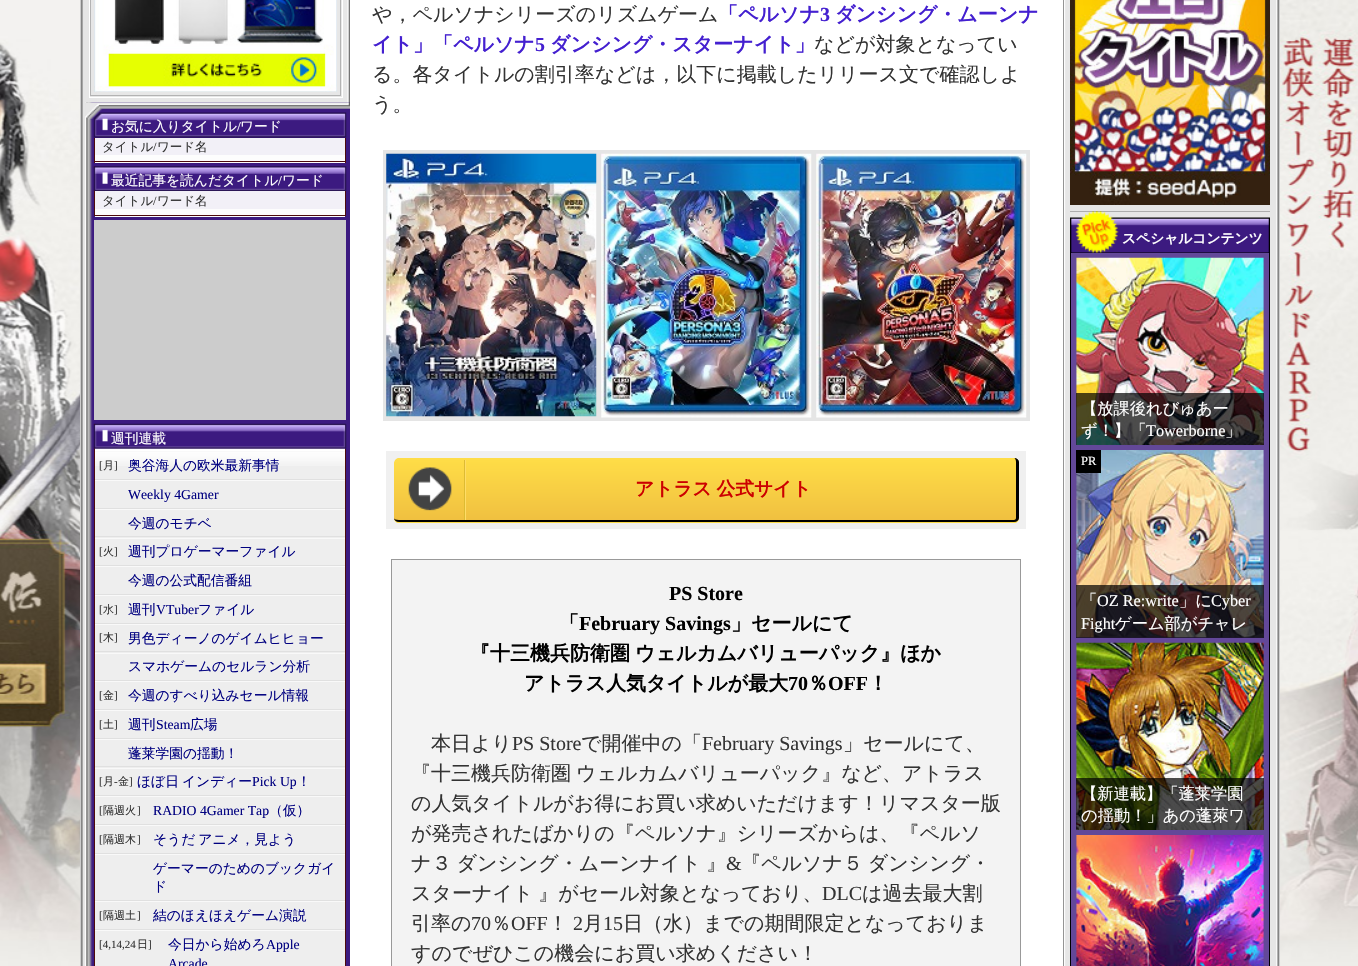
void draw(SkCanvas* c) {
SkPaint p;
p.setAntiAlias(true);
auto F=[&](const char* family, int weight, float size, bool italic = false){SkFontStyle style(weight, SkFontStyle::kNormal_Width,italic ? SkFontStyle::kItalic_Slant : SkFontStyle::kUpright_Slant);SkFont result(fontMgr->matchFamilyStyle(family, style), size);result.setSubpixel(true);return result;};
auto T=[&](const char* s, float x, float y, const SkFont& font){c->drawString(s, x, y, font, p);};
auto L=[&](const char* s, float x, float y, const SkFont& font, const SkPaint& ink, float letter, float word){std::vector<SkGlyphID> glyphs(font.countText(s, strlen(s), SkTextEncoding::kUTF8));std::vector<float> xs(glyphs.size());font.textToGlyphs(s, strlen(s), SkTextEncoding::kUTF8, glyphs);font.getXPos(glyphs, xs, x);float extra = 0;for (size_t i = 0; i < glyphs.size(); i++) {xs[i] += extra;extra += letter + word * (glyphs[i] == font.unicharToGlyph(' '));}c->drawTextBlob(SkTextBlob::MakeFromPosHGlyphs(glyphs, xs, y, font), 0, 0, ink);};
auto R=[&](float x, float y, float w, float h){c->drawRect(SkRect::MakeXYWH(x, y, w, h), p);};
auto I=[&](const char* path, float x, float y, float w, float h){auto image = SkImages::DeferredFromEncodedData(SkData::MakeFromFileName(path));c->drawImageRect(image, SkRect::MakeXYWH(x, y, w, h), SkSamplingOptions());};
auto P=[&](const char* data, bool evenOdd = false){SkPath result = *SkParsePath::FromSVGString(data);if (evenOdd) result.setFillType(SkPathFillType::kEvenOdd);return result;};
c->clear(0xffffffff);
I("2.png",0,0,1358,966);
I("1.png",80,0,1200,966);
p.setStroke(true);
p.setStrokeWidth(1);
p.setColor(0xffffffff);
c->drawRect(SkRect::MakeXYWH(89.5,-.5,253,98),p);
p.setColor(0xffb3b3b3);
c->drawRect(SkRect::MakeXYWH(90.5,-.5,250,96),p);
I("3.png",94,0,243,92);
I("4.png",85,102,265,864);
I("5.png",85,102,265,18);
I("6.png",93,112,254,26);
auto f1 = F("WenQuanYi Zen Hei",500,13.75);
p.setStroke(false);
p.setColor(0xffffffff);
T("お気に入りタイトル",111,131,f1);
auto f2 = F("Liberation Serif",400,13.75);
T("/",237,131,f2);
T("ワード",240,131,f1);
p.setColor(0xfff2f0f7);
R(95,138,250,17);
p.setColor(0xff4d0b0b);
R(345,138,1,25);
R(94,138,1,17);
auto f3 = F("WenQuanYi Zen Hei",500,12.5);
p.setColor(0xff333333);
T("タイトル ワード名",102,151,f3);
auto f4 = F("Liberation Serif",400,12.5);
T("/",153,151,f4);
p.setColor(0xfffdfdfd);
R(95,155,250,8);
p.setColor(0xff4d0b0b);
R(94,161,252,1);
R(94,155,1,8);
I("7.png",93,166,254,26);
p.setColor(0xffffffff);
T("最近記事を読んだタイトル",111,185,f1);
T("/",278,185,f2);
T("ワード",282,185,f1);
p.setColor(0xfff2f0f7);
R(95,191,250,18);
p.setColor(0xff4d0b0b);
R(345,191,1,25);
R(94,191,1,18);
p.setColor(0xff333333);
T("タイトル ワード名",102,205,f3);
T("/",153,205,f4);
p.setColor(0xfffdfdfd);
R(95,209,250,8);
p.setColor(0xff4d0b0b);
R(94,215,252,1);
R(94,209,1,7);
p.setColor(0xffcccccc);
R(94,220,252,200);
I("8.png",93,423,254,26);
p.setColor(0xffffffff);
T("週刊連載",111,443,f1);
p.setColor(0xffeeeeee);
R(95,466,250,500);
I("9.png",95,448,250,18);
p.setColor(0xff4d0b0b);
R(345,449,1,517);
R(94,449,1,517);
p.setColor(0xfff9f9f9);
R(95,451,250,1);
p.setColor(0xffe0e0e0);
R(95,479,250,1);
auto f5 = F("Liberation Serif",400,11);
p.setColor(0xff333333);
T("[",99,469,f5);
auto f6 = F("WenQuanYi Zen Hei",500,11);
T("月",103,469,f6);
T("]",114,469,f5);
p.setColor(0xff000080);
T("奥谷海人の欧米最新事情",128,470,f1);
p.setColor(0xfff9f9f9);
R(95,480,250,1);
p.setColor(0xffe0e0e0);
R(95,508,250,1);
p.setColor(0xff000080);
T("Weekly 4Gamer",128,499,f2);
p.setColor(0xfff9f9f9);
R(95,509,250,1);
p.setColor(0xffe0e0e0);
R(95,536,250,1);
p.setColor(0xff000080);
T("今週のモチベ",128,528,f1);
p.setColor(0xfff9f9f9);
R(95,538,250,1);
p.setColor(0xffe0e0e0);
R(95,565,250,1);
p.setColor(0xff333333);
T("[",99,555,f5);
T("火",103,555,f6);
T("]",114,555,f5);
p.setColor(0xff000080);
T("週刊プロゲーマーファイル",128,556,f1);
p.setColor(0xfff9f9f9);
R(95,566,250,1);
p.setColor(0xffe0e0e0);
R(95,594,250,1);
p.setColor(0xff000080);
T("今週の公式配信番組",128,585,f1);
p.setColor(0xfff9f9f9);
R(95,595,250,1);
p.setColor(0xffe0e0e0);
R(95,623,250,1);
p.setColor(0xff333333);
T("[",99,613,f5);
T("水",103,613,f6);
T("]",114,613,f5);
p.setColor(0xff000080);
T("週刊",128,614,f1);
T("VTuber",156,614,f2);
T("ファイル",198,614,f1);
p.setColor(0xfff9f9f9);
R(95,624,250,1);
p.setColor(0xffe0e0e0);
R(95,651,250,1);
p.setColor(0xff333333);
T("[",99,641,f5);
T("木",103,641,f6);
T("]",114,641,f5);
p.setColor(0xff000080);
T("男色ディーノのゲイムヒヒョー",128,643,f1);
p.setColor(0xfff9f9f9);
R(95,653,250,1);
p.setColor(0xffe0e0e0);
R(95,680,250,1);
p.setColor(0xff000080);
T("スマホゲームのセルラン分析",128,671,f1);
p.setColor(0xfff9f9f9);
R(95,681,250,1);
p.setColor(0xffe0e0e0);
R(95,709,250,1);
p.setColor(0xff333333);
T("[",99,699,f5);
T("金",103,699,f6);
T("]",114,699,f5);
p.setColor(0xff000080);
T("今週のすべり込みセール情報",128,700,f1);
p.setColor(0xfff9f9f9);
R(95,710,250,1);
p.setColor(0xffe0e0e0);
R(95,738,250,1);
p.setColor(0xff333333);
T("[",99,728,f5);
T("土",103,728,f6);
T("]",114,728,f5);
p.setColor(0xff000080);
T("週刊",128,729,f1);
T("Steam",156,729,f2);
T("広場",190,729,f1);
p.setColor(0xfff9f9f9);
R(95,739,250,1);
p.setColor(0xffe0e0e0);
R(95,766,250,1);
p.setColor(0xff000080);
T("蓬莱学園の揺動！",128,758,f1);
p.setColor(0xfff9f9f9);
R(95,768,250,1);
p.setColor(0xffe0e0e0);
R(95,795,250,1);
p.setColor(0xff333333);
T("[",99,785,f5);
T("月",103,785,f6);
T("-",114,785,f5);
T("金",118,785,f6);
T("]",129,785,f5);
p.setColor(0xff000080);
T("ほぼ日",137,786,f1);
T("インディー",182,786,f1);
T("Pick Up",252,786,f2);
T("！",297,786,f1);
p.setColor(0xfff9f9f9);
R(95,796,250,1);
p.setColor(0xffe0e0e0);
R(95,824,250,1);
p.setColor(0xff333333);
T("[",99,814,f5);
T("隔週火",103,814,f6);
T("]",137,814,f5);
p.setColor(0xff000080);
T("RADIO 4Gamer Tap",153,815,f2);
T("（仮）",269,815,f1);
p.setColor(0xfff9f9f9);
R(95,825,250,1);
p.setColor(0xffe0e0e0);
R(95,853,250,1);
p.setColor(0xff333333);
T("[",99,843,f5);
T("隔週木",103,843,f6);
T("]",137,843,f5);
p.setColor(0xff000080);
L("そうだ アニメ，見よう",153,844,f1,p,0,-1);
p.setColor(0xfff9f9f9);
R(95,854,250,1);
p.setColor(0xffe0e0e0);
R(95,900,250,1);
p.setColor(0xff000080);
T("ゲーマーのためのブックガイ",153,873,f1);
T("ド",153,891,f1);
p.setColor(0xfff9f9f9);
R(95,901,250,1);
p.setColor(0xffe0e0e0);
R(95,929,250,1);
p.setColor(0xff333333);
T("[",99,919,f5);
T("隔週土",103,919,f6);
T("]",137,919,f5);
p.setColor(0xff000080);
T("結のほえほえゲーム演説",153,920,f1);
p.setColor(0xfff9f9f9);
R(95,930,250,1);
p.setColor(0xff333333);
T("[4,14,24",99,948,f5);
T("日",137,948,f6);
T("]",148,948,f5);
p.setColor(0xff000080);
T("今日から始めろ",168,949,f1);
T("Apple",266,949,f2);
T("Arcade",168,968,f2);
p.setColor(0xffffffff);
R(350,0,713,966);
auto f7 = F("WenQuanYi Zen Hei",500,20);
p.setColor(0xff333333);
T("や，ペルソナシリーズのリズムゲーム",372,21,f7);
auto f8 = F("WenQuanYi Zen Hei",700,20);
p.setColor(0xff4420d0);
T("「ペルソナ",718,21,f8);
auto f9 = F("Liberation Serif",700,20);
T("3",820,21,f9);
T("ダンシング・ムーンナ",835,21,f8);
T("イト」「ペルソナ",372,51,f8);
T("5",535,51,f9);
T("ダンシング・スターナイト」",550,51,f8);
p.setColor(0xff333333);
T("などが対象となってい",814,51,f7);
T("る。各タイトルの割引率などは，以下に掲載したリリース文で確認しよ",372,81,f7);
T("う。",372,111,f7);
p.setColor(0xffe5e5e5);
R(383,150,647,271);
I("10.png",386,153,211,264);
I("11.png",601,153,211,265);
I("12.png",816,153,211,265);
p.setColor(0xfff0f0f0);
R(386,451,640,78);
c->save();
c->clipPath(P("M399 458h615c3 0 5 2 5 5v55c0 3-2 5-5 5h-615c-3 0-5-2-5-5v-55c0-3 2-5 5-5z"),true);
{
const SkColor colors[] = {0xffffde47,0xfff0c040};
const float stops[] = {0,1};
const SkPoint ends[] = {{705,457}, {705,520}};
p.setShader(SkGradientShader::MakeLinear(ends, colors, stops, 2, SkTileMode::kClamp));
p.setAlpha(255);
}
c->drawPath(P("M399 458h615c3 0 5 2 5 5v57h-625v-57c0-3 2-5 5-5z"),p);
{
const SkColor colors[] = {0xffffde47,0xfff0c040};
const float stops[] = {0,1};
const SkPoint ends[] = {{705,520}, {705,583}};
p.setShader(SkGradientShader::MakeLinear(ends, colors, stops, 2, SkTileMode::kClamp));
p.setAlpha(255);
}
R(394,520,625,3);
c->restore();
p.setShader(nullptr);
p.setColor(0xff000000);
c->drawPath(P("M399 458h615c3 0 5 2 5 4v56c0 2-2 4-5 4h-615c-3 0-5-2-5-4v-56c0-2 2-4 5-4zm0 0h615c1 0 2 2 2 4v56c0 1-1 2-2 2h-615c-3 0-5-1-5-2v-56c0-2 2-4 5-4z",true),p);
p.setColor(0xffffdd66);
R(465,460,1,60);
I("13.png",408,467,44,44);
p.setColor(0xffddbb33);
R(464,460,1,60);
auto f10 = F("WenQuanYi Zen Hei",700,18.75);
p.setColor(0xffcc0000);
L("アトラス 公式サイト",635,495,f10,p,0,-1);
p.setColor(0xfff3f3f3);
c->drawRect(SkRect::MakeXYWH(391.5,559.5,629,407),p);
p.setStroke(true);
p.setColor(0xff999999);
c->drawRect(SkRect::MakeXYWH(391.5,559.5,629,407),p);
p.setStroke(false);
p.setColor(0xff000000);
T("PS Store",669,600,f9);
T("「",559,630,f8);
T("February Savings",579,630,f9);
T("」セールにて",731,630,f8);
L("『十三機兵防衛圏 ウェルカムバリューパック』ほか",470,660,f8,p,0,-1);
T("アトラス人気タイトルが最大",524,690,f8);
T("70",788,690,f9);
T("％",808,690,f8);
T("OFF",828,690,f9);
T("！",868,690,f8);
p.setColor(0xff333333);
T("本日より",431,750,f7);
auto f11 = F("Liberation Serif",400,20);
T("PS Store",512,750,f11);
T("で開催中の「",581,750,f7);
T("February Savings",702,750,f11);
T("」セールにて、",843,750,f7);
L("『十三機兵防衛圏 ウェルカムバリューパック』など、アトラス",411,780,f7,p,0,-1);
T("の人気タイトルがお得にお買い求めいただけます！リマスター版",411,810,f7);
T("が発売されたばかりの『ペルソナ』シリーズからは、『ペルソ",411,840,f7);
L("ナ３ ダンシング・ムーンナイト 』",411,870,f7,p,0,-1);
T("&",726,870,f11);
L("『ペルソナ５ ダンシング・",741,870,f7,p,0,-1);
L("スターナイト 』がセール対象となっており、",411,900,f7,p,0,-1);
T("DLC",822,900,f11);
T("は過去最大割",862,900,f7);
T("引率の",411,930,f7);
T("70",471,930,f11);
T("％",491,930,f7);
T("OFF",511,930,f11);
T("！",548,930,f7);
T("2",573,930,f11);
T("月",583,930,f7);
T("15",603,930,f11);
T("日（水）までの期間限定となっておりま",623,930,f7);
T("すのでぜひこの機会にお買い求めください！",411,960,f7);
I("14.png",1070,0,200,205);
p.setColor(0xff000000);
R(1070,211,200,42);
I("15.png",1070,211,200,42);
auto f12 = F("WenQuanYi Zen Hei",700,13.75);
p.setColor(0xffffffff);
T("スペシャルコンテンツ",1122,243,f12);
p.setColor(0xff634899);
R(1071,253,198,713);
p.setColor(0xff000000);
R(1269,253,1,713);
R(1070,253,1,713);
I("16.png",1076,257,188,188);
p.setColor(0xb3000000);
R(1076,393,188,52);
auto f13 = F("WenQuanYi Zen Hei",500,16.25);
p.setColor(0xffffffff);
T("【放課後れびゅあー",1081,414,f13);
T("ず！】「",1081,436,f13);
auto f14 = F("Liberation Serif",400,16.25);
T("Towerborne",1146,436,f14);
T("」",1225,436,f13);
I("17.png",1076,450,188,188);
p.setColor(0xff000000);
R(1076,450,25,23);
p.setColor(0xffffffff);
T("PR",1081,465,f4);
p.setColor(0xb3000000);
R(1076,585,188,53);
p.setColor(0xffffffff);
T("「",1081,606,f13);
T("OZ Re:write",1097,606,f14);
T("」に",1179,606,f13);
T("Cyber",1211,606,f14);
T("Fight",1081,629,f14);
T("ゲーム部がチャレ",1115,629,f13);
I("18.png",1076,642,188,188);
p.setColor(0xb3000000);
R(1076,778,188,52);
p.setColor(0xffffffff);
T("【新連載】「蓬莱学園",1081,799,f13);
T("の揺動！」あの蓬萊ワ",1081,821,f13);
I("19.png",1076,835,188,131);
}
